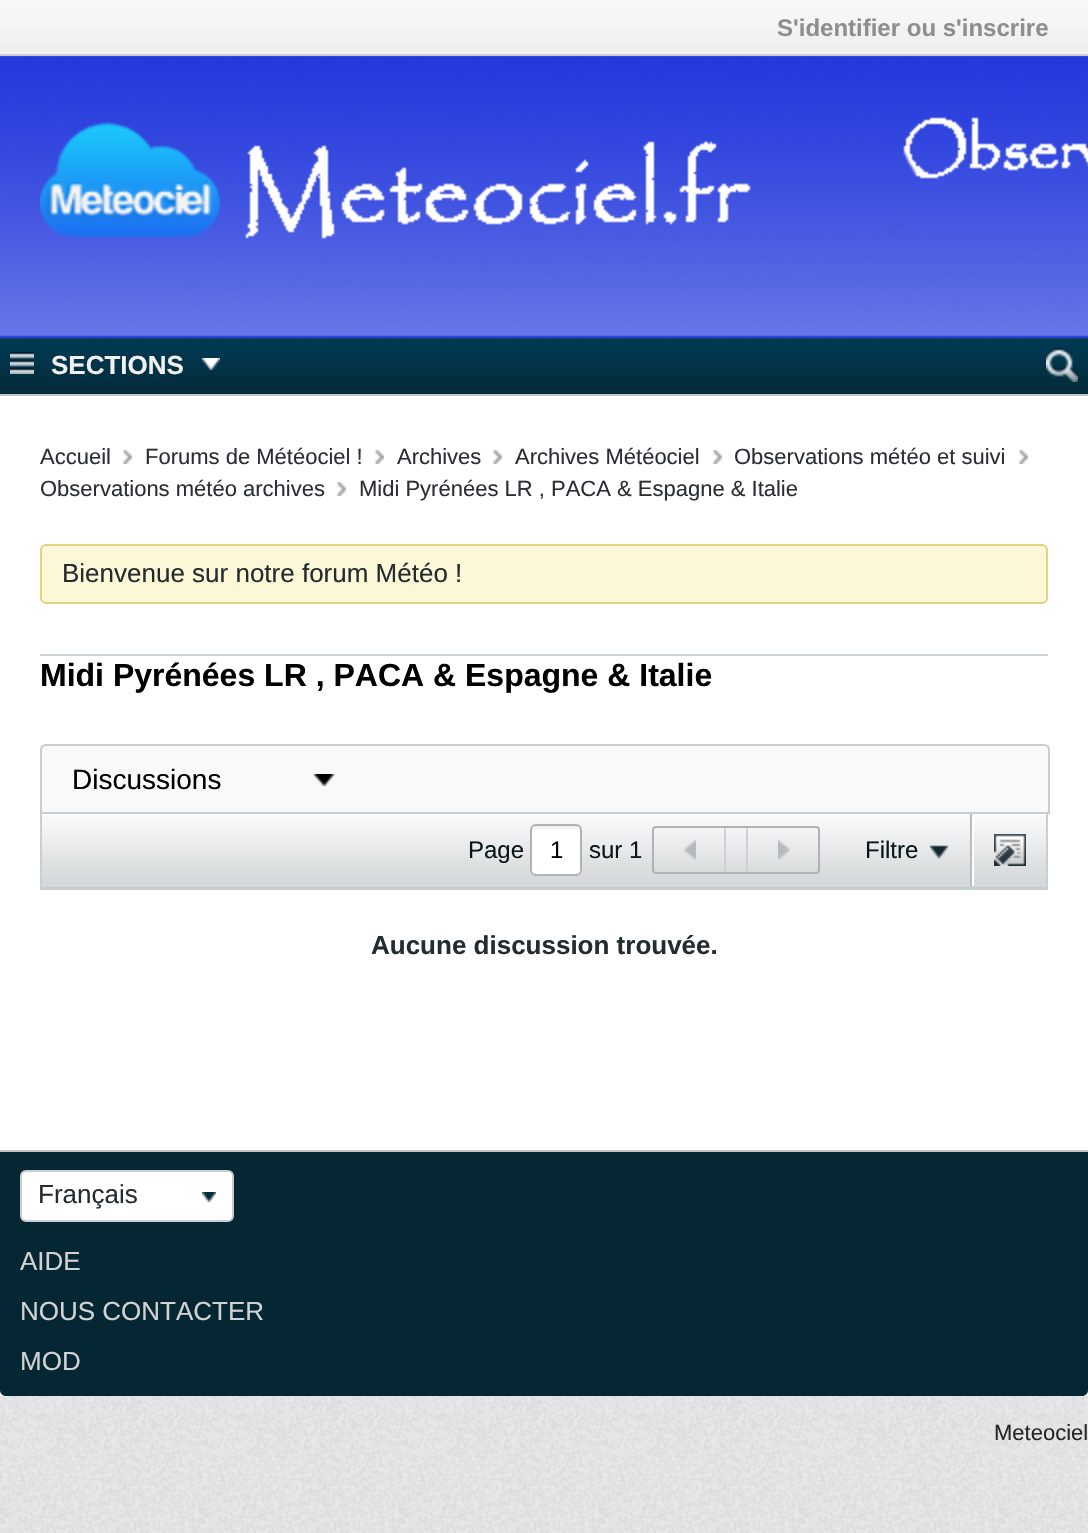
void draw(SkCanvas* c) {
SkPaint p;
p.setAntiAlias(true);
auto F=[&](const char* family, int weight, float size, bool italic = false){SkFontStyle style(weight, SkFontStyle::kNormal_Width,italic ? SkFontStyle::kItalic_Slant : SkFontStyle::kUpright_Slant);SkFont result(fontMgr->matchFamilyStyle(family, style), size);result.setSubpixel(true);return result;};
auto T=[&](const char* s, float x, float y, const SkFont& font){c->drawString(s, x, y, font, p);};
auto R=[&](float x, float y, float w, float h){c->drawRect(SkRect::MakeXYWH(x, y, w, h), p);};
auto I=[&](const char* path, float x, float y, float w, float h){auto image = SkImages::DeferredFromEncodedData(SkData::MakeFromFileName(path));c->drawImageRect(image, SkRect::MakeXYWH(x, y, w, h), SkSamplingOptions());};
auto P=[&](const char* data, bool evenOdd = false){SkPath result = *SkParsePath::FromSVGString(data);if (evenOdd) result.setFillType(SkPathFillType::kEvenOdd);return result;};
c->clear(0xffffffff);
I("1.png",0,0,1088,1533);
I("2.png",0,0,1088,56);
I("2.png",0,0,1088,56);
auto f1 = F("Liberation Sans",700,24);
p.setColor(0xff8e8e8e);
T("S'identifier ou s'inscrire",777,36,f1);
p.setColor(0xffffffff);
R(0,338,1088,1058);
I("3.png",0,56,1088,282);
I("4.png",40,121,180,118);
I("5.png",0,338,1088,1);
p.setColor(0xffc4c7c8);
R(0,394,1088,2);
I("6.png",0,338,1088,56);
I("7.png",10,352,24,22);
auto f2 = F("Liberation Sans",700,26);
p.setColor(0xfff1f1f1);
T("SECTIONS",51,374,f2);
I("8.png",202,358,18,12);
I("9.png",1046,348,32,34);
auto f3 = F("Liberation Sans",400,22);
p.setColor(0xff2a2e35);
T("Accueil",40,464,f3);
I("10.png",122,450,10,14);
T("Forums de Météociel !",145,464,f3);
I("10.png",374,450,10,14);
T("Archives",397,464,f3);
I("10.png",492,450,10,14);
T("Archives Météociel",515,464,f3);
I("10.png",712,450,10,14);
T("Observations météo et suivi",734,464,f3);
I("10.png",1018,450,10,14);
T("Observations météo archives",40,496,f3);
I("10.png",336,482,10,14);
T("Midi Pyrénées LR , PACA & Espagne & Italie",359,496,f3);
p.setColor(0xfffcf7d7);
c->drawRoundRect(SkRect::MakeXYWH(41,545,1006,58),5,5,p);
p.setStroke(true);
p.setStrokeWidth(2);
p.setColor(0xffe1d47e);
c->drawRoundRect(SkRect::MakeXYWH(41,545,1006,58),5,5,p);
auto f4 = F("Liberation Sans",400,26);
p.setStroke(false);
p.setColor(0xff252c2f);
T("Bienvenue sur notre forum Météo !",62,582,f4);
p.setColor(0xffccd1d5);
R(40,654,1008,2);
auto f5 = F("Liberation Sans",700,32);
p.setColor(0xff000000);
T("Midi Pyrénées LR , PACA & Espagne & Italie",40,686,f5);
p.setColor(0xfff9f9f9);
c->drawPath(P("M46 745h998c3 0 5 2 5 5v63h-1008v-63c0-3 2-5 5-5z"),p);
p.setStroke(true);
p.setColor(0xffc9ced2);
c->drawPath(P("M46 745h998c3 0 5 2 5 5v63h-1008v-63c0-3 2-5 5-5z"),p);
I("11.png",314,774,21,12);
auto f6 = F("Liberation Sans",400,28);
p.setStroke(false);
p.setColor(0xff000000);
T("Discussions",72,789,f6);
I("12.png",42,814,1004,72);
p.setStroke(true);
p.setColor(0xffc9ced2);
c->drawRect(SkRect::MakeXYWH(41,813,1006,74),p);
auto f7 = F("Liberation Sans",400,24);
p.setStroke(false);
p.setColor(0xff09161b);
T("Page",468,858,f7);
c->save();
c->clipPath(P("M536 824h40c3.5 0 6 2.5 6 6v40c0 3.5-2.5 6-6 6h-40c-3.5 0-6-2.5-6-6v-40c0-3.5 2.5-6 6-6z"),true);
{
const SkColor colors[] = {0xffedeeef,0xffffffff};
const float stops[] = {.01,.11};
const SkPoint ends[] = {{556,826}, {556,874}};
p.setShader(SkGradientShader::MakeLinear(ends, colors, stops, 2, SkTileMode::kClamp));
p.setAlpha(255);
}
R(530,826,52,48);
c->restore();
p.setStroke(true);
p.setShader(nullptr);
p.setColor(0xffaeb3b6);
c->drawRoundRect(SkRect::MakeXYWH(531,825,50,50),5,5,p);
p.setStroke(false);
p.setColor(0xff000000);
T("1",550,858,f7);
p.setColor(0xff09161b);
T("sur 1",589,858,f7);
p.setStroke(true);
p.setColor(0xffaeb3b6);
c->drawRoundRect(SkRect::MakeXYWH(653,827,166,46),3,3,p);
p.setStroke(false);
p.setColor(0xffcdd1d4);
R(724,828,2,44);
I("13.png",684,840,12,20);
R(746,828,2,44);
I("14.png",778,840,12,20);
p.setColor(0xff09161b);
T("Filtre",865,858,f7);
I("15.png",930,845,18,14);
p.setColor(0xffbcbcbc);
R(970,814,2,72);
p.setColor(0xffffffff);
R(972,814,2,72);
I("16.png",994,834,32,32);
p.setColor(0xffc8ccce);
R(40,888,1008,2);
p.setColor(0xff252c2f);
T("Aucune discussion trouvée.",371,954,f2);
p.setColor(0xff052733);
c->drawPath(P("M0 1150h1088v240c0 3.5-2.5 6-6 6h-1076c-3.5 0-6-2.5-6-6z"),p);
p.setColor(0xffc2c2c2);
R(0,1150,1088,2);
p.setColor(0xffffffff);
c->drawRoundRect(SkRect::MakeXYWH(21,1171,212,50),5,5,p);
p.setStroke(true);
p.setColor(0xffc8ccce);
c->drawRoundRect(SkRect::MakeXYWH(21,1171,212,50),5,5,p);
p.setStroke(false);
p.setColor(0xff252c2f);
T("Français",38,1203,f4);
I("17.png",202,1192,14,11);
p.setColor(0xffd2d2d2);
T("AIDE",20,1270,f4);
T("NOUS CONTACTER",20,1320,f4);
T("MOD",20,1370,f4);
p.setColor(0xff272727);
T("Meteociel",994,1440,f3);
}
